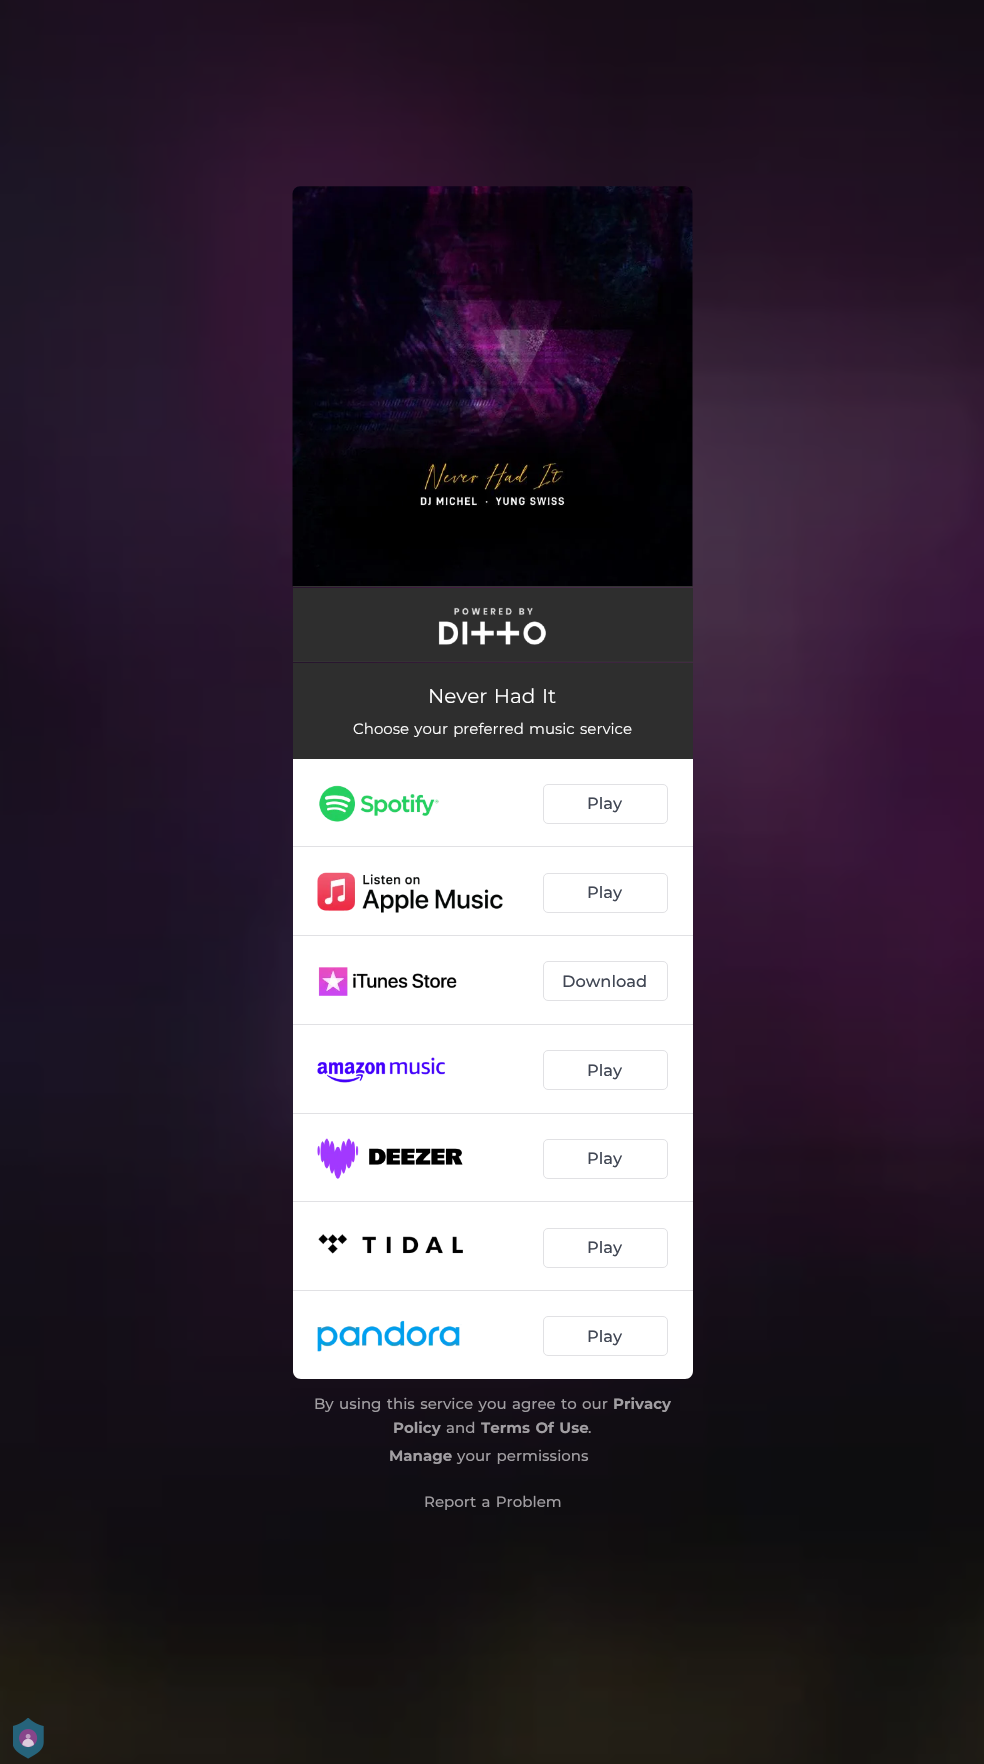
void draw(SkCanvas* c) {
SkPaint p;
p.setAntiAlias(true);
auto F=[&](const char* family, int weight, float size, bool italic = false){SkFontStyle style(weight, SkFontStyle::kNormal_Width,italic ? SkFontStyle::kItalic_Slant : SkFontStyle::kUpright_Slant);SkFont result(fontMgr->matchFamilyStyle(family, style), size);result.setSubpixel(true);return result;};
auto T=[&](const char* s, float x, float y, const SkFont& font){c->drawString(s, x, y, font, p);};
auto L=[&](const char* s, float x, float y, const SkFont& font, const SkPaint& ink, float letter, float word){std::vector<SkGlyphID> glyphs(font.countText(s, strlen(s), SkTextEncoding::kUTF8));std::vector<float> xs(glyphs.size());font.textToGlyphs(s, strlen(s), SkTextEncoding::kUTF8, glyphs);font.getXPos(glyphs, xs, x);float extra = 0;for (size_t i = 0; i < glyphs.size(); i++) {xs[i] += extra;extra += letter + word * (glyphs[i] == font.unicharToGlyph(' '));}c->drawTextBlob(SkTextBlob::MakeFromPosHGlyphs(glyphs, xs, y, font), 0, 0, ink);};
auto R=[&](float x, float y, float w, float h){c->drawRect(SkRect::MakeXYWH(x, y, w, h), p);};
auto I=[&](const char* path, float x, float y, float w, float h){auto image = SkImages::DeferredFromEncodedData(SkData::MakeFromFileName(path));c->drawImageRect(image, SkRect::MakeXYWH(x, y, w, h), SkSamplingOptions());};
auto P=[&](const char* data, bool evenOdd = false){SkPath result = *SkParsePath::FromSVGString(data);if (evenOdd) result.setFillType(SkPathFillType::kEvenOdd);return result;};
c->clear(0xffffffff);
I("1.png",0,0,984,1764);
I("2.png",292,186,401,401);
p.setColor(0xff2e2e2e);
R(293,588,400,73);
p.setColor(0xff333333);
R(293,586,400,1);
R(293,661,400,1);
I("3.png",438,607,108,38);
p.setColor(0xff2e2e2e);
R(293,663,400,96);
auto f1 = F("Montserrat",400,20);
p.setColor(0xffffffff);
L("Never Had It",428,703,f1,p,0,1.25);
auto f2 = F("Montserrat",400,15);
L("Choose your preferred music service",353,734,f2,p,0,1.25);
c->drawPath(P("M293 759h400v612c0 4.5-3.5 8-8 8h-384c-4.5 0-8-3.5-8-8z"),p);
p.setColor(0xffe1e1e4);
R(293,846,400,1);
I("4.png",319,785,120,37);
p.setStroke(true);
p.setStrokeWidth(1);
c->drawRoundRect(SkRect::MakeXYWH(543.5,784.5,124,39),4.5,4.5,p);
auto f3 = F("Montserrat",500,16.25);
p.setStroke(false);
p.setColor(0xff414754);
T("Play",587,809,f3);
p.setColor(0xffe1e1e4);
R(293,935,400,1);
I("5.png",317,872,186,41);
p.setStroke(true);
c->drawRoundRect(SkRect::MakeXYWH(543.5,873.5,124,39),4.5,4.5,p);
p.setStroke(false);
p.setColor(0xff414754);
T("Play",587,898,f3);
p.setColor(0xffe1e1e4);
R(293,1024,400,1);
I("6.png",318,967,139,29);
p.setStroke(true);
c->drawRoundRect(SkRect::MakeXYWH(543.5,961.5,124,39),4.5,4.5,p);
p.setStroke(false);
p.setColor(0xff414754);
T("Download",562,987,f3);
p.setColor(0xffe1e1e4);
R(293,1113,400,1);
I("7.png",317,1057,128,26);
p.setStroke(true);
c->drawRoundRect(SkRect::MakeXYWH(543.5,1050.5,124,39),4.5,4.5,p);
p.setStroke(false);
p.setColor(0xff414754);
T("Play",587,1076,f3);
p.setColor(0xffe1e1e4);
R(293,1201,400,1);
I("8.png",317,1138,146,41);
p.setStroke(true);
c->drawRoundRect(SkRect::MakeXYWH(543.5,1139.5,124,39),4.5,4.5,p);
p.setStroke(false);
p.setColor(0xff414754);
T("Play",587,1164,f3);
p.setColor(0xffe1e1e4);
R(293,1290,400,1);
I("9.png",318,1234,145,20);
p.setStroke(true);
c->drawRoundRect(SkRect::MakeXYWH(543.5,1228.5,124,39),4.5,4.5,p);
p.setStroke(false);
p.setColor(0xff414754);
T("Play",587,1253,f3);
I("10.png",317,1320,145,32);
p.setStroke(true);
p.setColor(0xffe1e1e4);
c->drawRoundRect(SkRect::MakeXYWH(543.5,1316.5,124,39),4.5,4.5,p);
p.setStroke(false);
p.setColor(0xff414754);
T("Play",587,1342,f3);
auto f4 = F("Montserrat",500,15);
p.setColor(0xffa19ea2);
L("By using this service you agree to our",314,1409,f4,p,0,1.25);
auto f5 = F("Montserrat",700,15);
T("Privacy",613,1409,f5);
T("Policy",393,1433,f5);
T("and",446,1433,f4);
L("Terms Of Use",481,1433,f5,p,0,1.25);
T(".",588,1433,f4);
T("Manage",389,1461,f5);
L("your permissions",457,1461,f4,p,0,1.25);
L("Report a Problem",424,1507,f4,p,0,1.25);
I("11.png",13,1718,31,41);
}
